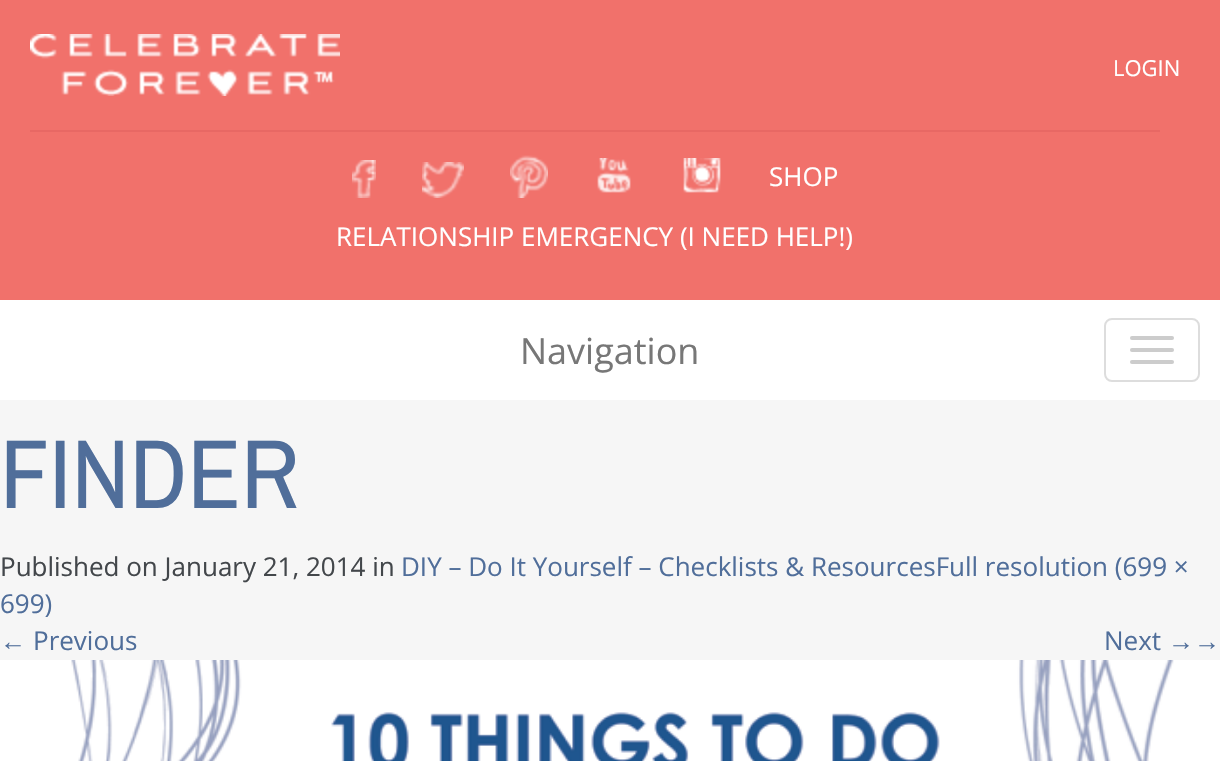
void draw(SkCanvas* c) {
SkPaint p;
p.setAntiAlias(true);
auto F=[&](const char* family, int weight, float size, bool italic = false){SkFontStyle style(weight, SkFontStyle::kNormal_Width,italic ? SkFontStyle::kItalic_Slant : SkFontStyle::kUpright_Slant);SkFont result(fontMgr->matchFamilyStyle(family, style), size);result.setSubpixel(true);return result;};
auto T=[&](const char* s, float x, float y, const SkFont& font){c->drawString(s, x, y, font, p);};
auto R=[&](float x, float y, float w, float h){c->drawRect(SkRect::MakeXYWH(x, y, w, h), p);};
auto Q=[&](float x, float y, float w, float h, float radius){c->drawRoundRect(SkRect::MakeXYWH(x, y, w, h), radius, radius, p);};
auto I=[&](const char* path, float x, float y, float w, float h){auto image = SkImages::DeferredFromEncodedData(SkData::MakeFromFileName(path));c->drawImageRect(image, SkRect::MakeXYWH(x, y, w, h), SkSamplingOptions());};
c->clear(0xfff6f6f6);
p.setColor(0xfff1716b);
R(0,0,1220,300);
I("1.png",30,34,310,62);
auto f1 = F("Open Sans",400,22);
p.setColor(0xffffffff);
T("LOGIN",1113,76,f1);
p.setColor(0xffe86864);
R(30,130,1130,2);
I("2.png",352,160,24,38);
I("3.png",422,162,42,36);
I("4.png",510,155,38,43);
I("5.png",597,158,34,35);
I("6.png",683,158,38,35);
auto f2 = F("Open Sans",400,26);
p.setColor(0xffffffff);
T("SHOP",769,186,f2);
T("RELATIONSHIP EMERGENCY (I NEED HELP!)",336,246,f2);
R(0,300,1220,100);
auto f3 = F("Open Sans",400,36);
p.setColor(0xff777777);
T("Navigation",520,364,f3);
p.setStroke(true);
p.setStrokeWidth(2);
p.setColor(0xffdddddd);
c->drawRoundRect(SkRect::MakeXYWH(1105,319,94,62),7,7,p);
p.setStroke(false);
p.setColor(0xffcccccc);
Q(1130,336,44,4,2);
Q(1130,348,44,4,2);
Q(1130,360,44,4,2);
auto f4 = F("Archivo Narrow",400,98);
p.setColor(0xff506e9a);
T("FINDER",0,508,f4);
p.setColor(0xff43474b);
T("Published on January 21, 2014 in",0,576,f2);
p.setColor(0xff506e9a);
T("DIY – Do It Yourself – Checklists & ResourcesFull resolution (699 ×",401,576,f2);
T("699)",0,613,f2);
auto f5 = F("Liberation Serif",400,26);
T("←",0,650,f5);
T("Previous",33,650,f2);
T("Next",1104,650,f2);
T("→→",1168,650,f5);
I("7.png",0,660,1220,101);
}
